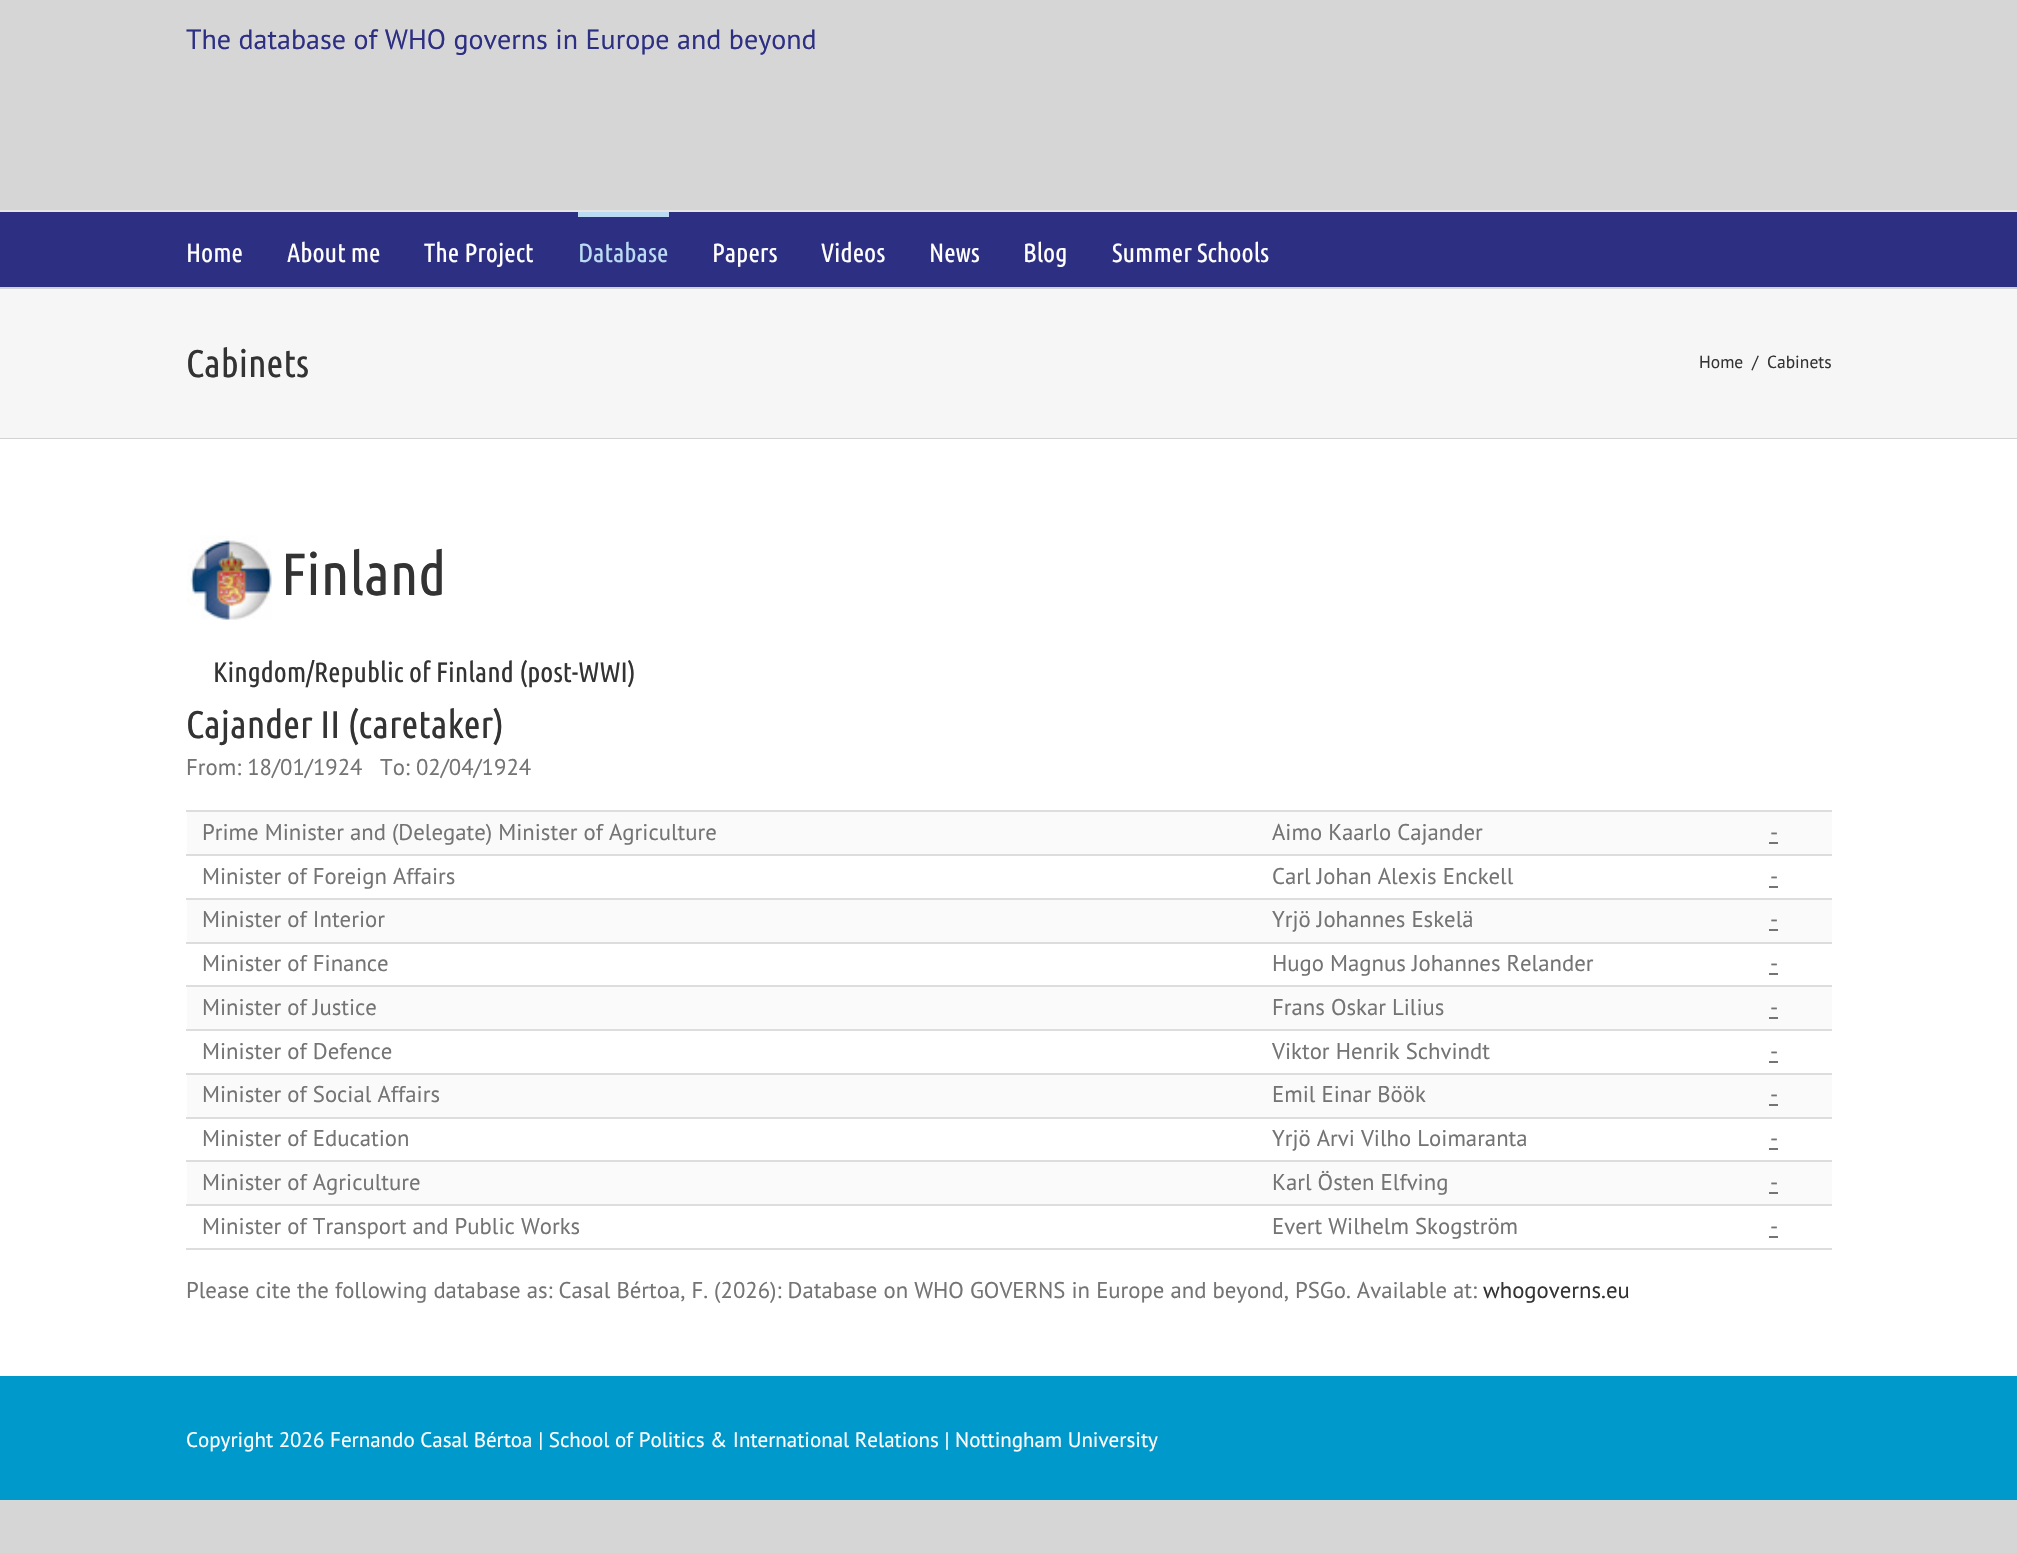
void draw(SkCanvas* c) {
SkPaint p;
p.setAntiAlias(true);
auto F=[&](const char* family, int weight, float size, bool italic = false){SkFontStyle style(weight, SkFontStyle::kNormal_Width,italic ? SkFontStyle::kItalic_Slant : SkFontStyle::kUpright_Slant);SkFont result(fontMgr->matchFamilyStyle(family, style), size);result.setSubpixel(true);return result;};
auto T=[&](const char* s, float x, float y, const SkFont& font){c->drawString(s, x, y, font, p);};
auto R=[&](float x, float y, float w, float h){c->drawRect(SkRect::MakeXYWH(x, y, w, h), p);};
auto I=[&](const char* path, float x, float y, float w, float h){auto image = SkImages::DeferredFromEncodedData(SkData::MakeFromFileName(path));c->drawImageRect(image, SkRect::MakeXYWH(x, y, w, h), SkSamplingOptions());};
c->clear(0xffd7d6d6);
auto f1 = F("PT Sans",400,28);
p.setColor(0xff2d2f83);
T("The database of WHO governs in Europe and beyond",186,49,f1);
p.setColor(0xffe5e5e5);
R(0,210,2017,2);
p.setColor(0xff2d2f83);
R(0,212,2017,75);
auto f2 = F("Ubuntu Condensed",400,26.25);
p.setColor(0xffffffff);
T("Home",186,262,f2);
T("About me",287,262,f2);
T("The Project",424,262,f2);
p.setColor(0xffbadbf2);
R(578,212,91,5);
T("Database",578,262,f2);
p.setColor(0xffffffff);
T("Papers",712,262,f2);
T("Videos",821,262,f2);
T("News",929,262,f2);
T("Blog",1023,262,f2);
T("Summer Schools",1112,262,f2);
p.setColor(0xfff6f6f6);
R(0,289,2017,149);
p.setColor(0xffd2d3d4);
R(0,287,2017,2);
R(0,438,2017,1);
auto f3 = F("Ubuntu Condensed",400,38.5);
p.setColor(0xff333333);
T("Cabinets",186,377,f3);
auto f4 = F("PT Sans",400,17.5);
T("Home",1699,368,f4);
T("/",1752,368,f4);
T("Cabinets",1767,368,f4);
p.setColor(0xffffffff);
R(0,439,2017,937);
I("1.png",187,535,85,85);
auto f5 = F("Ubuntu Condensed",400,59.5);
p.setColor(0xff333333);
T("Finland",281,595,f5);
auto f6 = F("Ubuntu Condensed",400,28);
T("Kingdom/Republic of Finland (post-WWI)",213,682,f6);
T("Cajander II (caretaker)",186,738,f3);
auto f7 = F("PT Sans",400,22.75);
p.setColor(0xff747474);
T("From: 18/01/1924",186,775,f7);
T("To: 02/04/1924",380,775,f7);
p.setColor(0xffdddddd);
R(186,810,1646,2);
p.setColor(0xfffafafa);
R(187,812,1645,42);
p.setColor(0xff747474);
T("Prime Minister and (Delegate) Minister of Agriculture",202,840,f7);
T("Aimo Kaarlo Cajander",1272,840,f7);
T("-",1770,840,f7);
R(1769,842,9,2);
p.setColor(0xffdddddd);
R(186,854,1646,2);
p.setColor(0xff747474);
T("Minister of Foreign Affairs",202,884,f7);
T("Carl Johan Alexis Enckell",1272,884,f7);
T("-",1770,884,f7);
R(1769,886,9,2);
p.setColor(0xffdddddd);
R(186,898,1646,2);
p.setColor(0xfffafafa);
R(187,900,1645,42);
p.setColor(0xff747474);
T("Minister of Interior",202,927,f7);
T("Yrjö Johannes Eskelä",1272,927,f7);
T("-",1770,927,f7);
R(1769,929,9,2);
p.setColor(0xffdddddd);
R(186,942,1646,2);
p.setColor(0xff747474);
T("Minister of Finance",202,971,f7);
T("Hugo Magnus Johannes Relander",1272,971,f7);
T("-",1770,971,f7);
R(1769,973,9,2);
p.setColor(0xffdddddd);
R(186,985,1646,2);
p.setColor(0xfffafafa);
R(187,987,1645,42);
p.setColor(0xff747474);
T("Minister of Justice",202,1015,f7);
T("Frans Oskar Lilius",1272,1015,f7);
T("-",1770,1015,f7);
R(1769,1017,9,2);
p.setColor(0xffdddddd);
R(186,1029,1646,2);
p.setColor(0xff747474);
T("Minister of Defence",202,1059,f7);
T("Viktor Henrik Schvindt",1272,1059,f7);
T("-",1770,1059,f7);
R(1769,1061,9,2);
p.setColor(0xffdddddd);
R(186,1073,1646,2);
p.setColor(0xfffafafa);
R(187,1075,1645,42);
p.setColor(0xff747474);
T("Minister of Social Affairs",202,1102,f7);
T("Emil Einar Böök",1272,1102,f7);
T("-",1770,1102,f7);
R(1769,1104,9,2);
p.setColor(0xffdddddd);
R(186,1117,1646,2);
p.setColor(0xff747474);
T("Minister of Education",202,1146,f7);
T("Yrjö Arvi Vilho Loimaranta",1272,1146,f7);
T("-",1770,1146,f7);
R(1769,1148,9,2);
p.setColor(0xffdddddd);
R(186,1160,1646,2);
p.setColor(0xfffafafa);
R(187,1162,1645,42);
p.setColor(0xff747474);
T("Minister of Agriculture",202,1190,f7);
T("Karl Östen Elfving",1272,1190,f7);
T("-",1770,1190,f7);
R(1769,1192,9,2);
p.setColor(0xffdddddd);
R(186,1204,1646,2);
R(186,1248,1646,2);
p.setColor(0xff747474);
T("Minister of Transport and Public Works",202,1234,f7);
T("Evert Wilhelm Skogström",1272,1234,f7);
T("-",1770,1234,f7);
R(1769,1236,9,2);
T("Please cite the following database as: Casal Bértoa, F. (2026): Database on WHO GOVERNS in Europe and beyond, PSGo. Available at:",186,1298,f7);
p.setColor(0xff333333);
T("whogoverns.eu",1483,1298,f7);
p.setColor(0xff0099cc);
R(0,1376,2017,124);
auto f8 = F("PT Sans",400,21);
p.setColor(0xffffffff);
T("Copyright 2026 Fernando Casal Bértoa | School of Politics & International Relations | Nottingham University",186,1447,f8);
}
